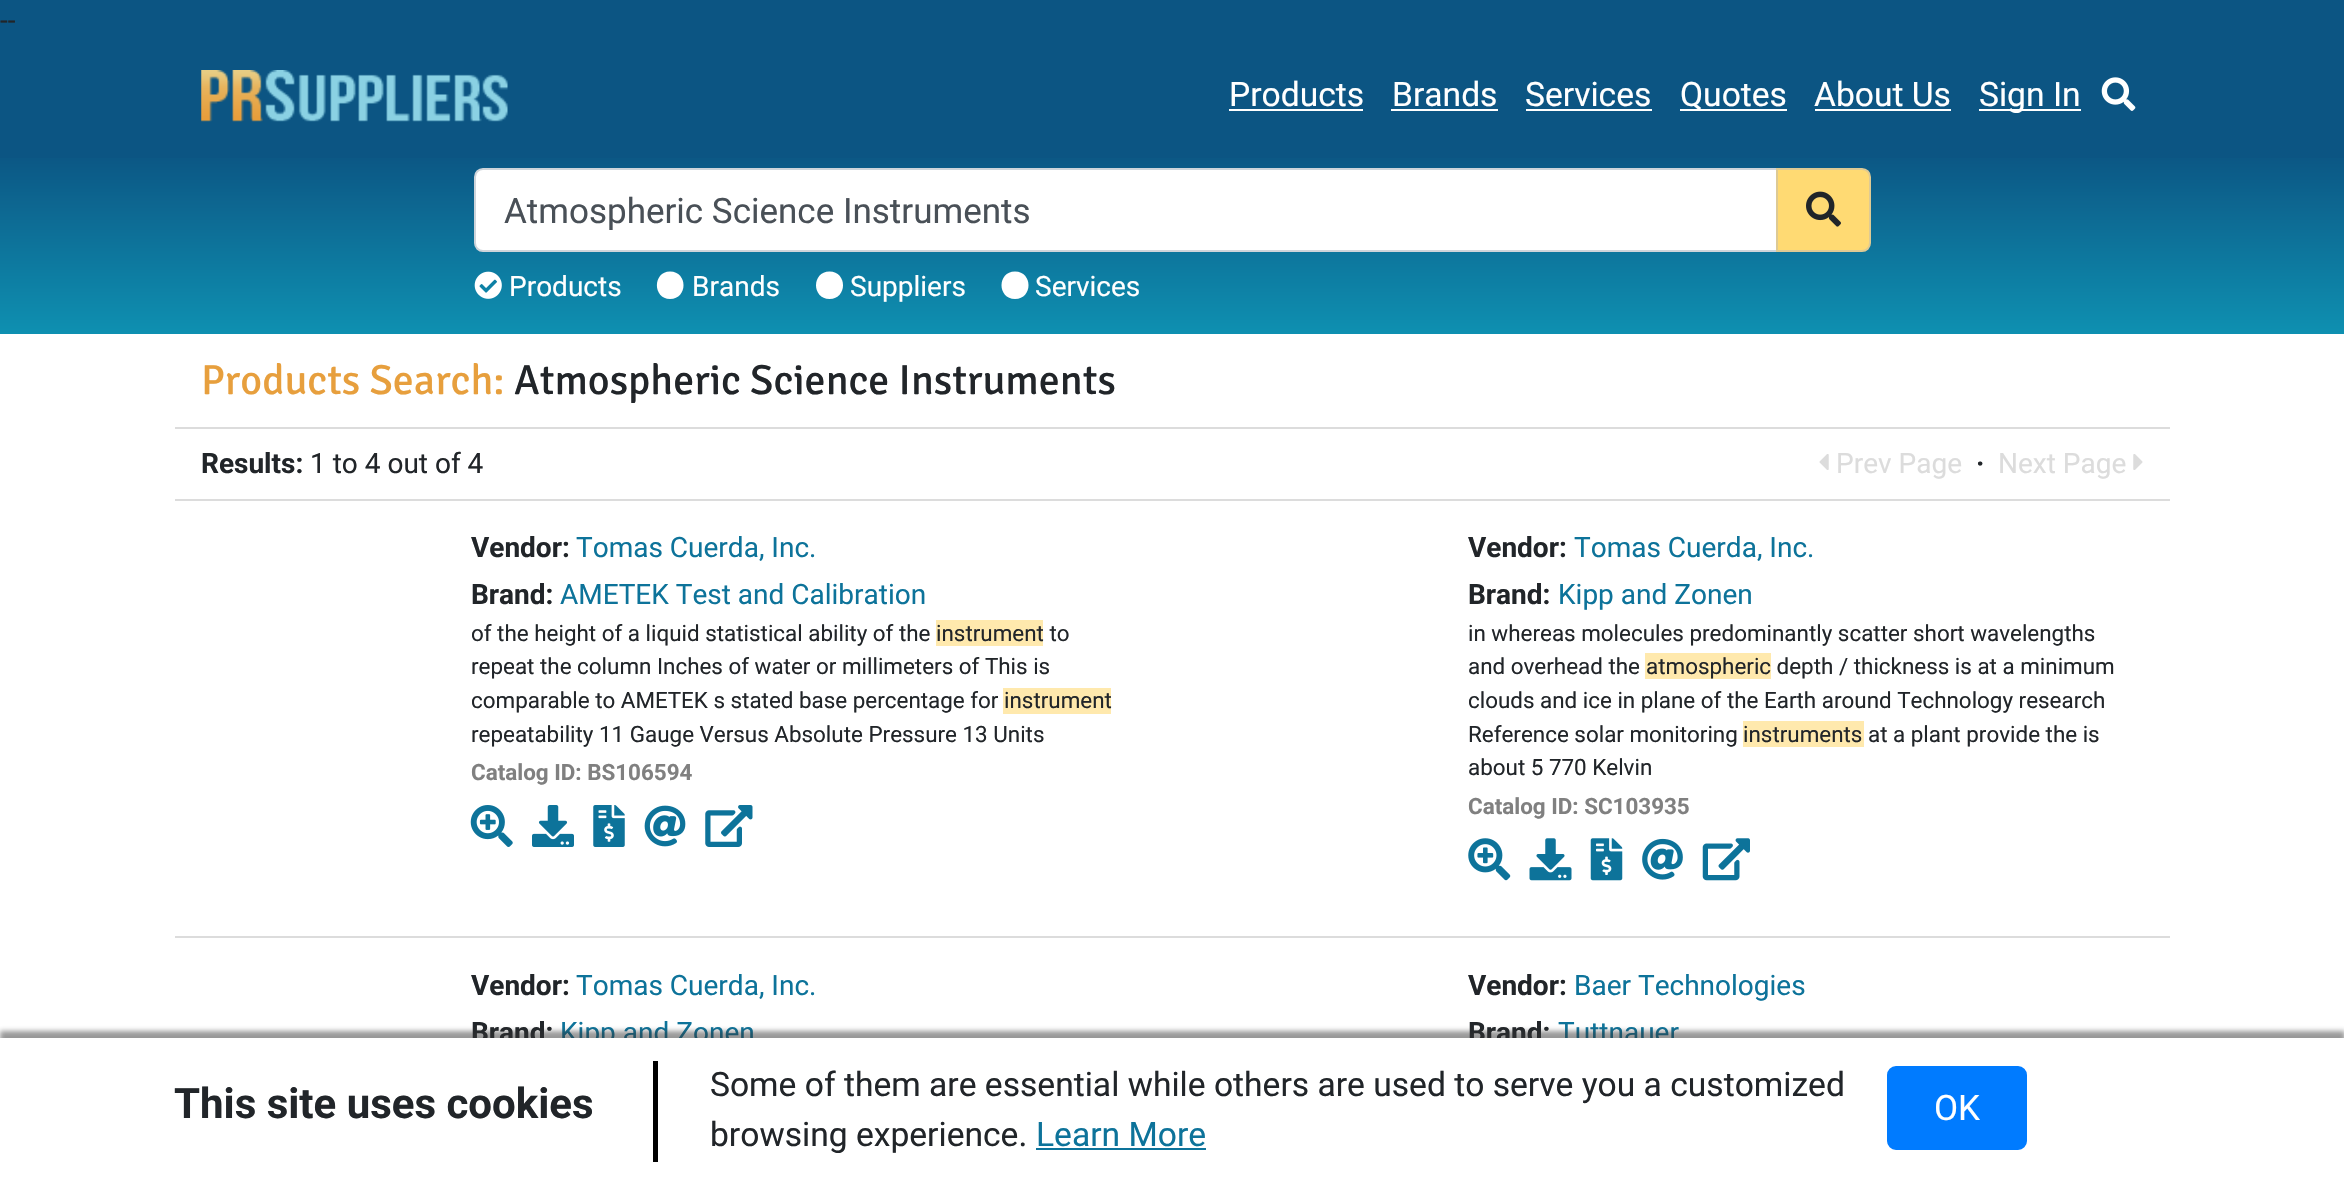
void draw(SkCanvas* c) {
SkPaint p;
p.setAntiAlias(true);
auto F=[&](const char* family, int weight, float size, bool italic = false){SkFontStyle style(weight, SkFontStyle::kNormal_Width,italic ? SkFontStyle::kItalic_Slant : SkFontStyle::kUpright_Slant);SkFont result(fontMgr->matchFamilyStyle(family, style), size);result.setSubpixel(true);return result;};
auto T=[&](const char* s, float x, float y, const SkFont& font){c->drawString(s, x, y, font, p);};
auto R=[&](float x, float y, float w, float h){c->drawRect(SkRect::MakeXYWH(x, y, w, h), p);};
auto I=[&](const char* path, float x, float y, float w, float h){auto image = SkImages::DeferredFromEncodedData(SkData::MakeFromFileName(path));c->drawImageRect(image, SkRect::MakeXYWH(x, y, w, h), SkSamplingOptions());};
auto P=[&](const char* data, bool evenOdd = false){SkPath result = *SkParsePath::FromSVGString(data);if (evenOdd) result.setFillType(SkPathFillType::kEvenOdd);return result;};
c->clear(0xff0c5583);
auto f1 = F("Roboto",400,28);
p.setColor(0xff212529);
T("--",0,30,f1);
I("1.png",201,70,307,52);
auto f2 = F("Roboto",400,33.6);
p.setColor(0xffffffff);
T("Products",1229,106,f2);
R(1229,109,134,2);
T("Brands",1392,106,f2);
R(1391,109,107,2);
T("Services",1525,106,f2);
R(1526,109,126,2);
R(1680,109,107,2);
T("Quotes",1680,106,f2);
T("About Us",1814,106,f2);
R(1815,109,136,2);
R(1979,109,102,2);
T("Sign In",1979,106,f2);
I("2.png",2101,77,35,34);
{
const SkColor colors[] = {0xff0c5583,0xff0e90b1};
const float stops[] = {0,1};
const SkPoint ends[] = {{1173,150}, {1173,334}};
p.setShader(SkGradientShader::MakeLinear(ends, colors, stops, 2, SkTileMode::kClamp));
p.setAlpha(255);
}
R(0,158,2344,176);
p.setShader(nullptr);
p.setColor(0xffffffff);
c->drawPath(P("M483 169h1294v82h-1294c-4.5 0-8-3.5-8-8v-66c0-4.5 3.5-8 8-8z"),p);
p.setStroke(true);
p.setStrokeWidth(2);
p.setColor(0xffced4da);
c->drawPath(P("M483 169h1294v82h-1294c-4.5 0-8-3.5-8-8v-66c0-4.5 3.5-8 8-8z"),p);
auto f3 = F("Roboto",400,35);
p.setStroke(false);
p.setColor(0xff495057);
T("Atmospheric Science Instruments",504,223,f3);
p.setColor(0xffffda73);
c->drawPath(P("M1777 169h85c4.5 0 8 3.5 8 8v66c0 4.5-3.5 8-8 8h-85z"),p);
p.setStroke(true);
p.setColor(0xffdeca94);
c->drawPath(P("M1777 169h85c4.5 0 8 3.5 8 8v66c0 4.5-3.5 8-8 8h-85z"),p);
I("3.png",1806,191,35,36);
I("4.png",474,271,28,28);
p.setStroke(false);
p.setColor(0xffffffff);
T("Products",509,296,f1);
c->drawPath(P("M670 271.5c-17.5 0-17.5 27.5 0 27.5c18 0 18-27.5 0-27.5z"),p);
T("Brands",692,296,f1);
c->drawPath(P("M829.5 271.5c-18 0-18 27.5 0 27.5c18 0 18-27.5 0-27.5z"),p);
T("Suppliers",850,296,f1);
c->drawPath(P("M1015 271.5c-18 0-18 27.5 0 27.5c18 0 18-27.5 0-27.5z"),p);
T("Services",1035,296,f1);
R(0,334,2344,704);
p.setColor(0xffdcdcdc);
R(175,427,1995,2);
auto f4 = F("Signika",300,42);
p.setColor(0xffe79f3d);
T("Products Search:",201,394,f4);
p.setColor(0xff212529);
T("Atmospheric Science Instruments",514,394,f4);
auto f5 = F("Roboto",700,28);
T("Results:",201,473,f5);
T("1 to 4 out of 4",310,473,f1);
I("5.png",1819,454,10,16);
p.setColor(0xffdcdcdc);
T("Prev Page",1836,473,f1);
p.setColor(0xff212529);
T("·",1976,473,f5);
p.setColor(0xffdcdcdc);
T("Next Page",1998,473,f1);
I("6.png",2133,454,10,16);
R(175,499,1995,2);
p.setColor(0xff212529);
T("Vendor:",471,557,f5);
p.setColor(0xff0d739a);
T("Tomas Cuerda, Inc.",576,557,f1);
p.setColor(0xff212529);
T("Brand:",471,604,f5);
p.setColor(0xff0d739a);
T("AMETEK Test and Calibration",560,604,f1);
auto f6 = F("Roboto",400,22.4);
p.setColor(0xff212529);
T("of the height of a liquid statistical ability of the",471,641,f6);
p.setColor(0xffffe9ad);
R(936,620,107,26);
p.setColor(0xff212529);
T("instrument to",936,641,f6);
T("repeat the column Inches of water or millimeters of This is",471,674,f6);
T("comparable to AMETEK s stated base percentage for",471,708,f6);
p.setColor(0xffffe9ad);
R(1003,688,108,26);
p.setColor(0xff212529);
T("instrument",1004,708,f6);
T("repeatability 11 Gauge Versus Absolute Pressure 13 Units",471,742,f6);
auto f7 = F("Roboto",700,22.4);
p.setColor(0xff808080);
T("Catalog ID: BS106594",471,780,f7);
I("7.png",470,805,43,42);
I("8.png",532,805,42,42);
I("9.png",593,805,32,42);
I("10.png",644,805,42,42);
I("11.png",705,805,48,42);
p.setColor(0xff212529);
T("Vendor:",1468,557,f5);
p.setColor(0xff0d739a);
T("Tomas Cuerda, Inc.",1574,557,f1);
p.setColor(0xff212529);
T("Brand:",1468,604,f5);
p.setColor(0xff0d739a);
T("Kipp and Zonen",1558,604,f1);
p.setColor(0xff212529);
T("in whereas molecules predominantly scatter short wavelengths",1468,641,f6);
T("and overhead the",1468,674,f6);
p.setColor(0xffffe9ad);
R(1645,653,126,26);
p.setColor(0xff212529);
T("atmospheric depth / thickness is at a minimum",1646,674,f6);
T("clouds and ice in plane of the Earth around Technology research",1468,708,f6);
T("Reference solar monitoring",1468,742,f6);
p.setColor(0xffffe9ad);
R(1743,721,121,26);
p.setColor(0xff212529);
T("instruments at a plant provide the is",1743,742,f6);
T("about 5 770 Kelvin",1468,775,f6);
p.setColor(0xff808080);
T("Catalog ID: SC103935",1468,814,f7);
I("12.png",1468,838,43,43);
I("13.png",1529,838,43,43);
I("14.png",1590,838,33,43);
I("15.png",1642,838,41,42);
I("16.png",1702,838,48,43);
p.setColor(0xffdcdcdc);
R(175,936,1995,2);
p.setColor(0xff212529);
T("Vendor:",471,995,f5);
p.setColor(0xff0d739a);
T("Tomas Cuerda, Inc.",576,995,f1);
p.setColor(0xff212529);
T("Brand:",471,1042,f5);
p.setColor(0xff0d739a);
T("Kipp and Zonen",560,1042,f1);
p.setColor(0xff212529);
T("Vendor:",1468,995,f5);
p.setColor(0xff0d739a);
T("Baer Technologies",1574,995,f1);
p.setColor(0xff212529);
T("Brand:",1468,1042,f5);
p.setColor(0xff0d739a);
T("Tuttnauer",1558,1042,f1);
p.setColor(0x80323232);
p.setMaskFilter(SkMaskFilter::MakeBlur(kNormal_SkBlurStyle, 2.5));
c->drawRect(SkRect::MakeXYWH(0,1031,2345,143),p);
p.setMaskFilter(nullptr);
p.setColor(0xffffffff);
R(0,1038,2344,143);
auto f8 = F("Roboto",700,42);
p.setColor(0xff212529);
T("This site uses cookies",174,1118,f8);
p.setColor(0xff000000);
R(653,1061,5,101);
p.setColor(0xff212529);
T("Some of them are essential while others are used to serve you a customized",710,1096,f2);
T("browsing experience.",710,1146,f2);
p.setColor(0xff0d739a);
T("Learn More",1036,1146,f2);
R(1036,1148,170,2);
p.setColor(0xff007bff);
c->drawRoundRect(SkRect::MakeXYWH(1888,1067,138,82),8,8,p);
p.setStroke(true);
c->drawRoundRect(SkRect::MakeXYWH(1888,1067,138,82),8,8,p);
p.setStroke(false);
p.setColor(0xffffffff);
T("OK",1934,1120,f3);
}
